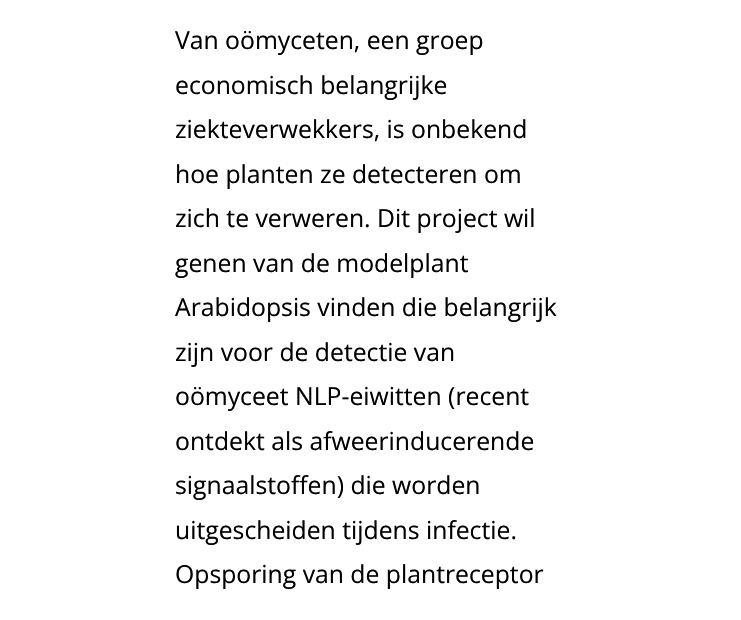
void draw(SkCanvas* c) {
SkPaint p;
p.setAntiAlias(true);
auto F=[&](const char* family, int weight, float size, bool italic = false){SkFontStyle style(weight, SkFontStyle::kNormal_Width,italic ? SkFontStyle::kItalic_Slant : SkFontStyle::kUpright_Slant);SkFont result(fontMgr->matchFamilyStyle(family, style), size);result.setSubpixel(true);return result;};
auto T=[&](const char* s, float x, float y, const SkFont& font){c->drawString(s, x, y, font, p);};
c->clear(0xffffffff);
auto f1 = F("Open Sans",400,24.75);
p.setColor(0xff000000);
T("Van oömyceten, een groep",175,49,f1);
T("economisch belangrijke",175,94,f1);
T("ziekteverwekkers, is onbekend",175,138,f1);
T("hoe planten ze detecteren om",175,183,f1);
T("zich te verweren. Dit project wil",175,227,f1);
T("genen van de modelplant",175,272,f1);
T("Arabidopsis vinden die belangrijk",175,316,f1);
T("zijn voor de detectie van",175,361,f1);
T("oömyceet NLP-eiwitten (recent",175,405,f1);
T("ontdekt als afweerinducerende",175,450,f1);
T("signaalstoffen) die worden",175,494,f1);
T("uitgescheiden tijdens infectie.",175,539,f1);
T("Opsporing van de plantreceptor",175,583,f1);
}
